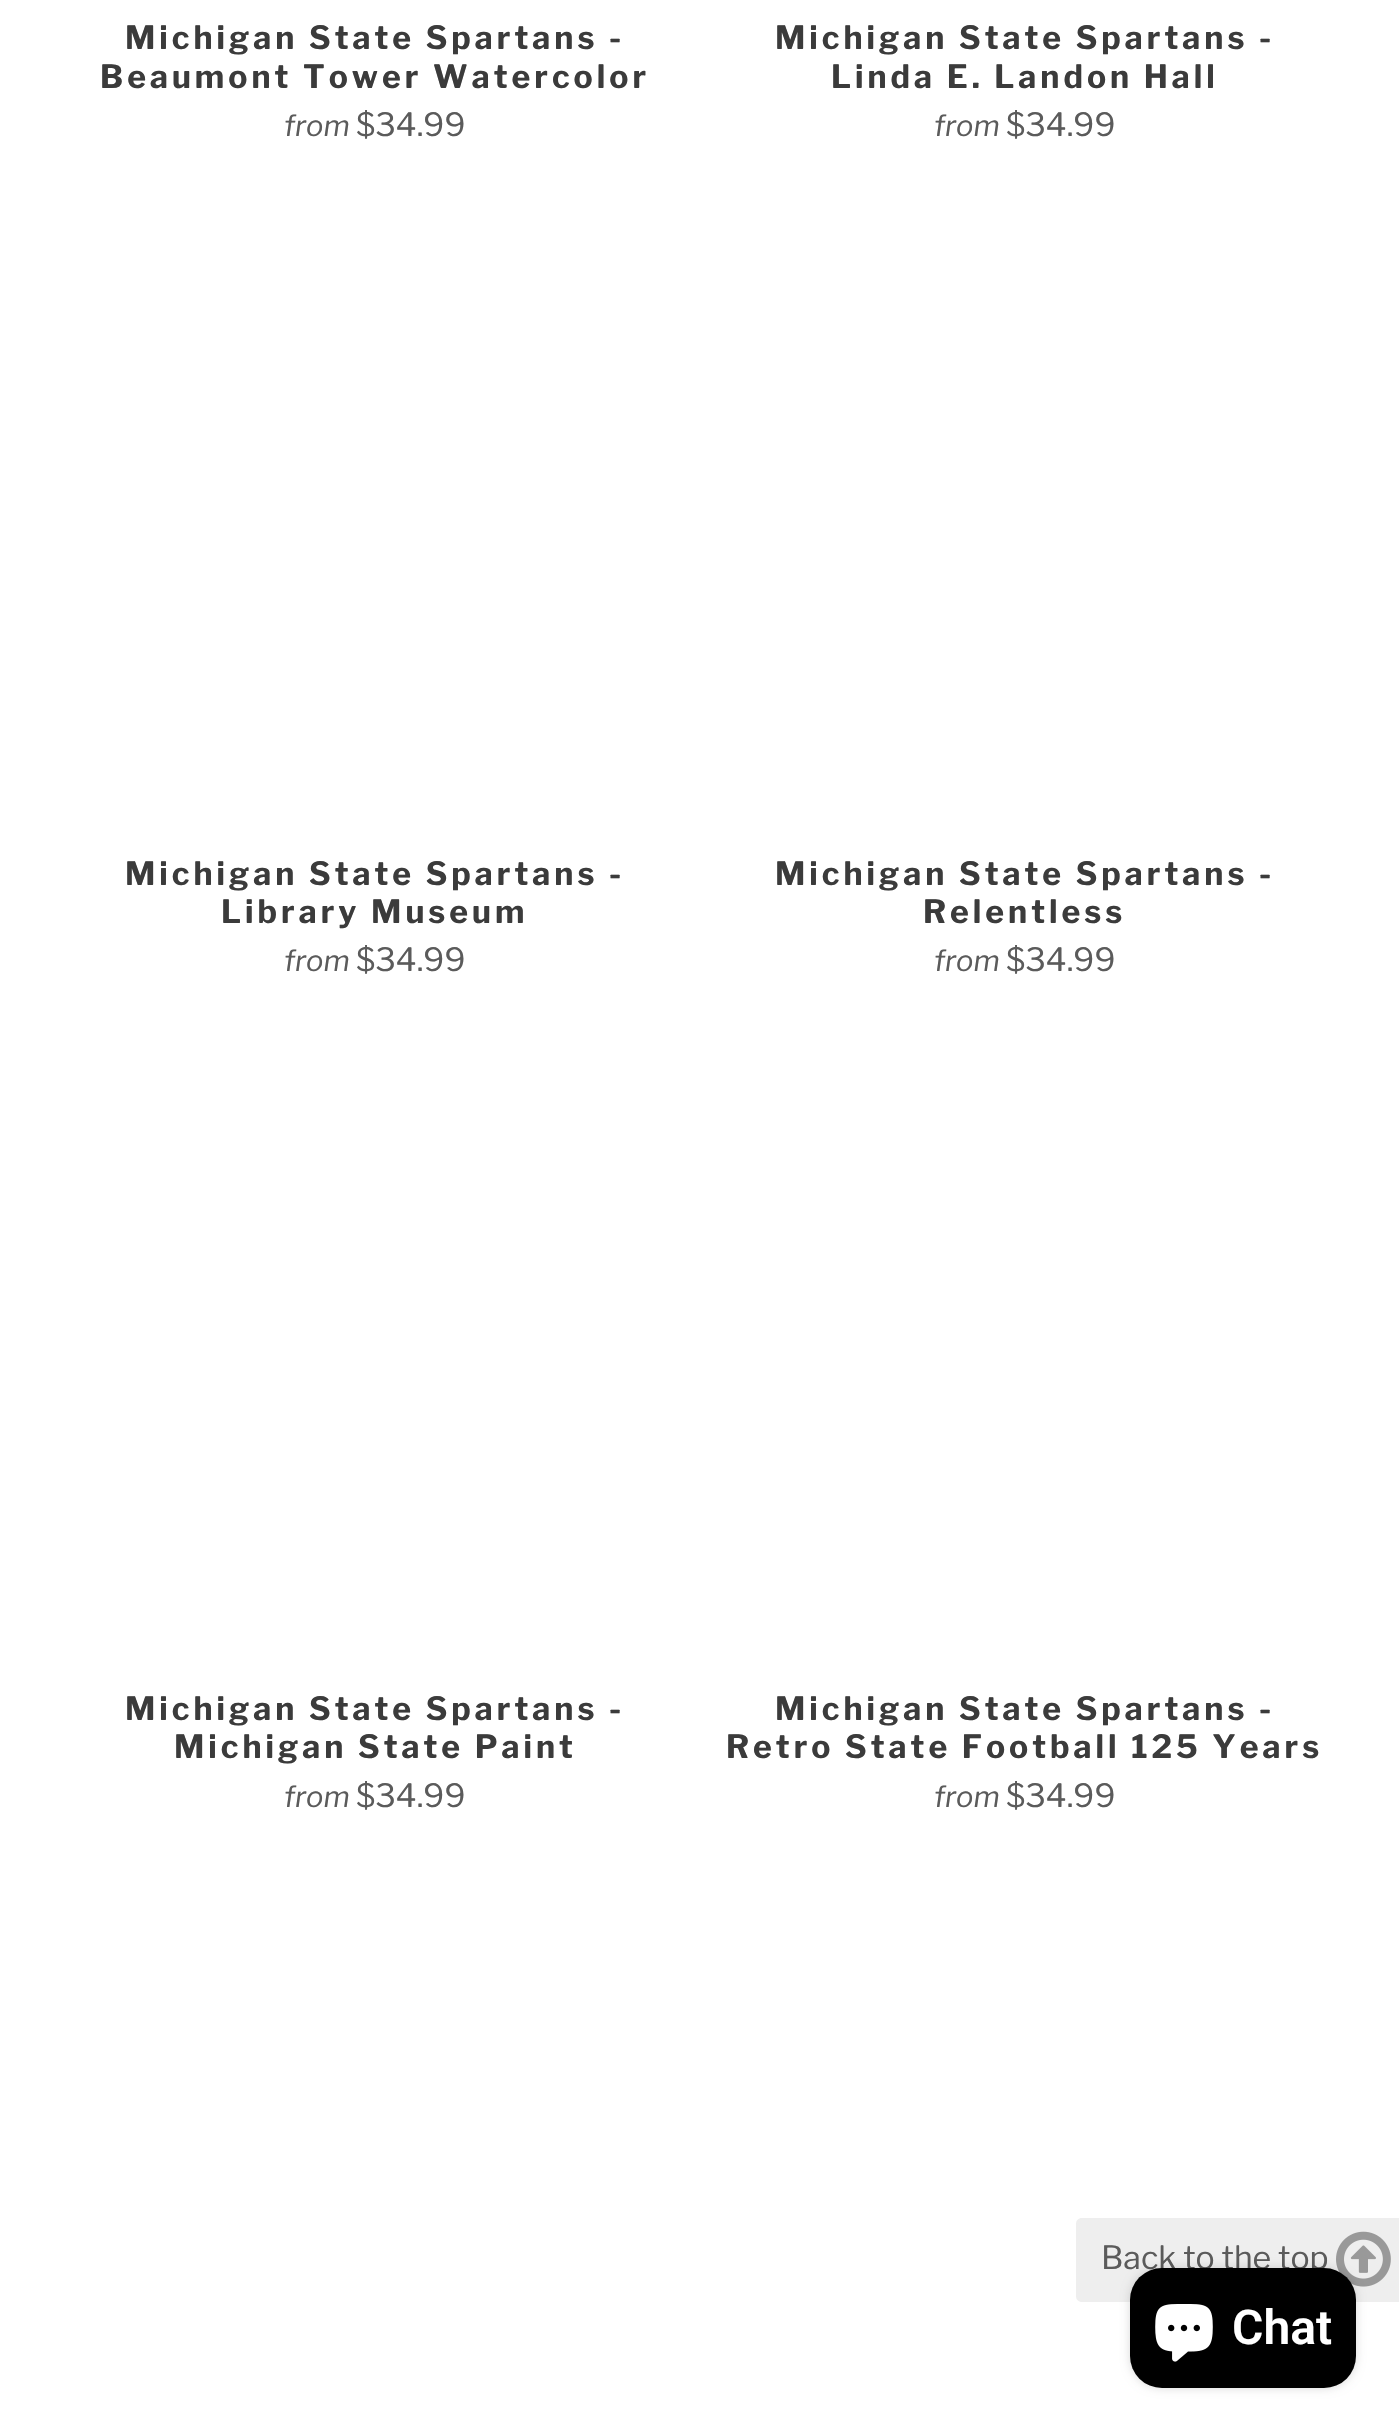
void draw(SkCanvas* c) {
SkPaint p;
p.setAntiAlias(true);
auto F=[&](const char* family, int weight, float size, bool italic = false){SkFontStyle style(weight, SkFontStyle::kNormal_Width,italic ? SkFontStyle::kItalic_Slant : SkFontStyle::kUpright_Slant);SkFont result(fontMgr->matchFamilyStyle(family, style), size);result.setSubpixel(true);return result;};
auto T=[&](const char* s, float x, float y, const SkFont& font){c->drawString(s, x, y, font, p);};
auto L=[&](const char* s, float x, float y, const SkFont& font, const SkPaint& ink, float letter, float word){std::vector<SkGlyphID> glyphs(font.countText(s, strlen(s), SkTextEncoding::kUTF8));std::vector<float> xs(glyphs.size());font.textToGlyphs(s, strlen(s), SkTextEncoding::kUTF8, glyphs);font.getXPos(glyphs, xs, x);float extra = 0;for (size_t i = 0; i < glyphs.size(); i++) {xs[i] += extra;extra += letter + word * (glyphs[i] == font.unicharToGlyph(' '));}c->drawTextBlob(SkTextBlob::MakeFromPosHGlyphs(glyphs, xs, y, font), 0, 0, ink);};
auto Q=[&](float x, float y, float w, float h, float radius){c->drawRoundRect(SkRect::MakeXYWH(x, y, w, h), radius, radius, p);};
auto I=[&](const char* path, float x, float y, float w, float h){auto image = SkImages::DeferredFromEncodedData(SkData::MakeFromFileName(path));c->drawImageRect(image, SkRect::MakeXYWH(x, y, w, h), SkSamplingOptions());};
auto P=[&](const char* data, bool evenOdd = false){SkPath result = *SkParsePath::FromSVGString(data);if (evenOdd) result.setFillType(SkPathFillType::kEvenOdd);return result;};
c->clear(0xffffffff);
auto f1 = F("Libre Franklin",700,32);
p.setColor(0xff3b3b3b);
L("Michigan State Spartans -",125,49,f1,p,4,0);
L("Beaumont Tower Watercolor",100,88,f1,p,4,0);
auto f2 = F("Libre Franklin",400,29,true);
p.setColor(0xff5b5b5b);
T("from",284,136,f2);
auto f3 = F("Libre Franklin",400,32);
T("$34.99",356,136,f3);
p.setColor(0xff3b3b3b);
L("Michigan State Spartans -",775,49,f1,p,4,0);
L("Linda E. Landon Hall",831,88,f1,p,4,0);
p.setColor(0xff5b5b5b);
T("from",934,136,f2);
T("$34.99",1006,136,f3);
p.setColor(0xff3b3b3b);
L("Michigan State Spartans -",125,885,f1,p,4,0);
L("Library Museum",221,923,f1,p,4,0);
p.setColor(0xff5b5b5b);
T("from",284,971,f2);
T("$34.99",356,971,f3);
p.setColor(0xff3b3b3b);
L("Michigan State Spartans -",775,885,f1,p,4,0);
L("Relentless",923,923,f1,p,4,0);
p.setColor(0xff5b5b5b);
T("from",934,971,f2);
T("$34.99",1006,971,f3);
p.setColor(0xff3b3b3b);
L("Michigan State Spartans -",125,1720,f1,p,4,0);
L("Michigan State Paint",174,1758,f1,p,4,0);
p.setColor(0xff5b5b5b);
T("from",284,1807,f2);
T("$34.99",356,1807,f3);
p.setColor(0xff3b3b3b);
L("Michigan State Spartans -",775,1720,f1,p,4,0);
L("Retro State Football 125 Years",726,1758,f1,p,4,0);
p.setColor(0xff5b5b5b);
T("from",934,1807,f2);
T("$34.99",1006,1807,f3);
p.setColor(0xffeeeeee);
c->drawPath(P("M1082 2218h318v84h-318c-3.5 0-6-2.5-6-6v-72c0-3.5 2.5-6 6-6z"),p);
p.setColor(0xff5b5b5b);
T("Back to the top",1101,2269,f3);
I("1.png",1336,2231,55,56);
p.setColor(0x26000000);
p.setMaskFilter(SkMaskFilter::MakeBlur(kNormal_SkBlurStyle, 5));
c->drawRoundRect(SkRect::MakeXYWH(1130,2268,226,120),32,32,p);
p.setMaskFilter(nullptr);
p.setColor(0xff000000);
Q(1130,2268,226,120,32);
I("2.png",1155,2304,58,58);
auto f4 = F("Roboto",600,48);
p.setColor(0xffffffff);
T("Chat",1232,2344,f4);
}
